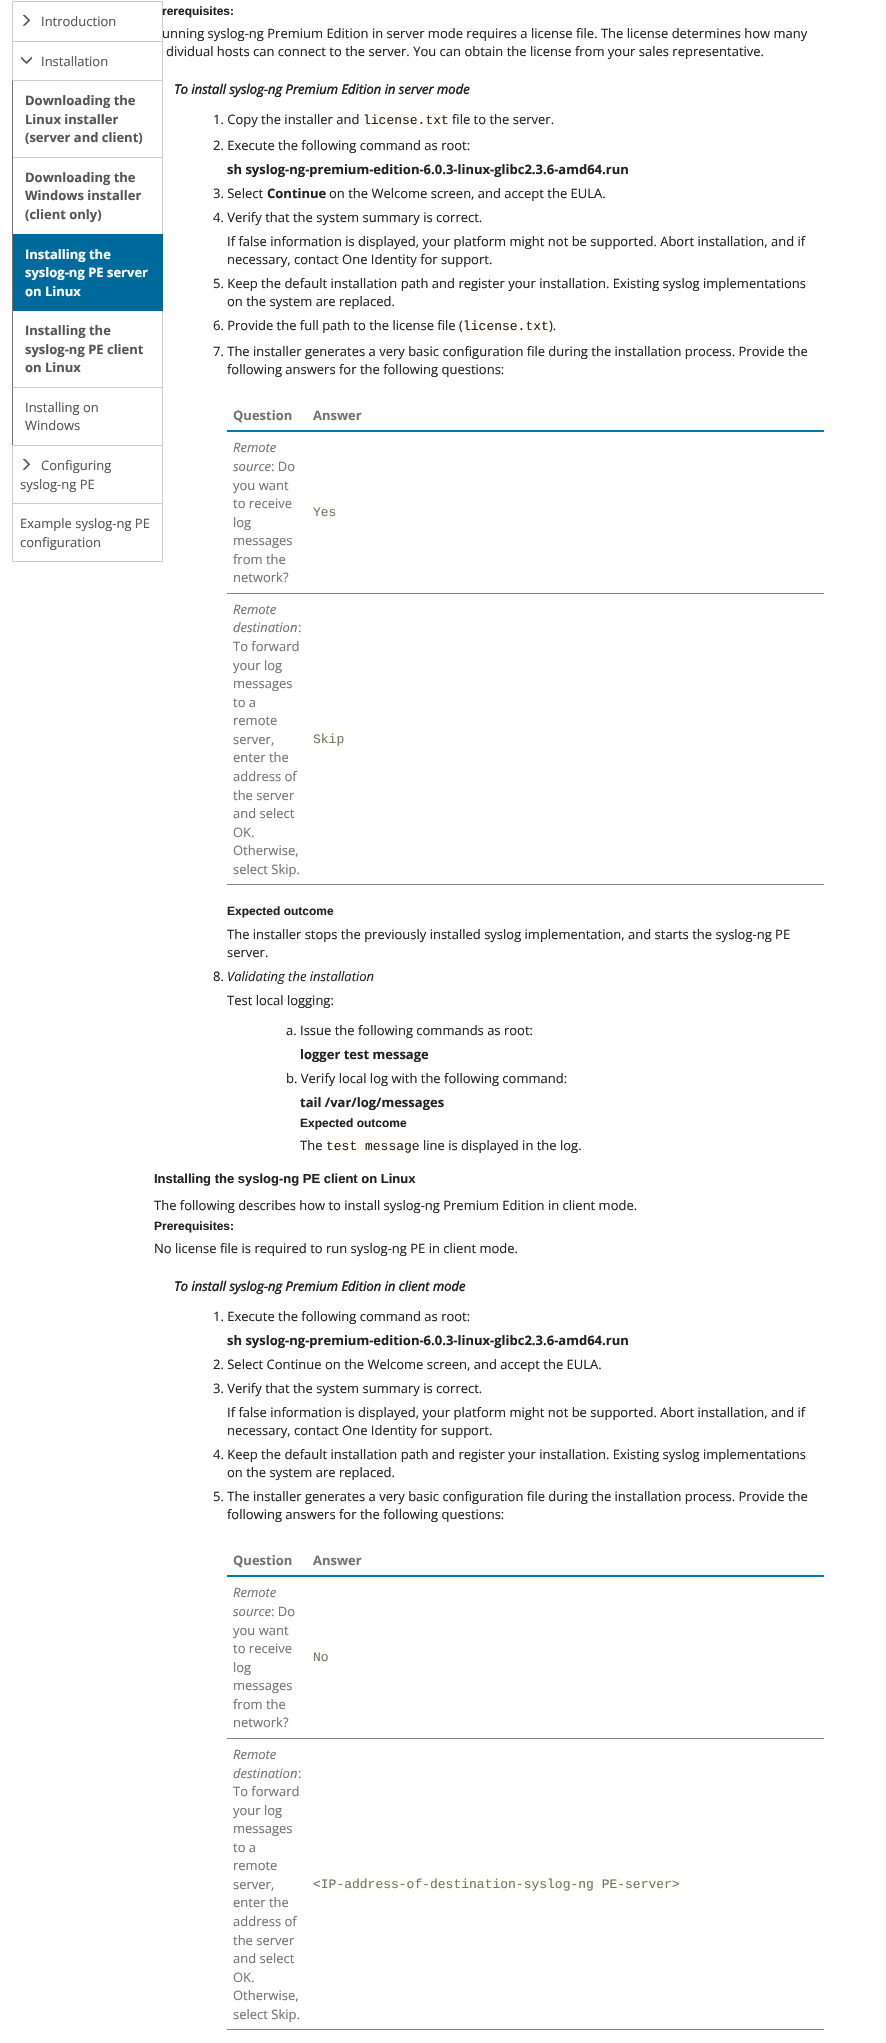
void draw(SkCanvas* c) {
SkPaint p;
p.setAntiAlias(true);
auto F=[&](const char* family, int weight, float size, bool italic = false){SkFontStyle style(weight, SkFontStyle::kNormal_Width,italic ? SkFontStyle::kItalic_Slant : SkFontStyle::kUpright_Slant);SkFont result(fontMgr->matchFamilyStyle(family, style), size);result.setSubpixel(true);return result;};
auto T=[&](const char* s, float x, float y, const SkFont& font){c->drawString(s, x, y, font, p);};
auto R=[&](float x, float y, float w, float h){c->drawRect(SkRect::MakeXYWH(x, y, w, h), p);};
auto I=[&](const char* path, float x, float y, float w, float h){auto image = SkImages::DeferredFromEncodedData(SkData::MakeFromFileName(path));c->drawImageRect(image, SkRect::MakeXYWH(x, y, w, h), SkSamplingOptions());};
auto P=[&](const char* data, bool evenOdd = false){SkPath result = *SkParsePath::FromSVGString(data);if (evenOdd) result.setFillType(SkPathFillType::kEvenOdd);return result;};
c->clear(0xffffffff);
p.setStroke(true);
p.setStrokeWidth(1);
p.setColor(0xffcccccc);
c->drawPath(P("M13 1.5h149c.5 0 .5 0 .5 .5v39.5h-150v-39.5c0-.5 0-.5 .5-.5z"),p);
I("1.png",22,14,9,12);
auto f1 = F("Open Sans",400,13);
p.setStroke(false);
p.setColor(0xff555555);
T("Introduction",41,26,f1);
p.setStroke(true);
p.setColor(0xffcccccc);
c->drawRect(SkRect::MakeXYWH(12.5,41.5,150,39),p);
I("2.png",21,56,11,8);
p.setStroke(false);
p.setColor(0xff555555);
T("Installation",41,66,f1);
p.setColor(0xffffffff);
c->drawPath(P("M13 80h149c.5 0 1 .5 1 1v77h-151v-77c0-.5 .5-1 1-1z"),p);
p.setColor(0xffcccccc);
c->drawPath(P("M13 80h-1l1 1h149l1-1h-1z"),p);
c->drawPath(P("M163 158v-78l-1 1v76z"),p);
p.setColor(0xff737373);
c->drawPath(P("M13 81l-1-1v1v77l1-1z"),p);
auto f2 = F("Open Sans",700,13);
p.setColor(0xff555555);
T("Downloading the",25,105,f2);
T("Linux installer",25,124,f2);
T("(server and client)",25,142,f2);
p.setColor(0xffcccccc);
R(12,157,151,1);
R(162,157,1,78);
p.setColor(0xff737373);
R(12,157,1,78);
p.setColor(0xff555555);
T("Downloading the",25,182,f2);
T("Windows installer",25,200,f2);
T("(client only)",25,219,f2);
p.setColor(0xffcccccc);
R(162,310,1,78);
p.setColor(0xff016a9c);
R(13,234,150,77);
p.setColor(0xffffffff);
T("Installing the",25,259,f2);
T("syslog-ng PE server",25,277,f2);
T("on Linux",25,296,f2);
p.setColor(0xff737373);
R(12,234,1,154);
p.setColor(0xff555555);
T("Installing the",25,335,f2);
T("syslog-ng PE client",25,354,f2);
T("on Linux",25,372,f2);
p.setColor(0xffffffff);
R(12,387,151,1);
p.setColor(0xffcccccc);
c->drawPath(P("M12 387l1 1h149l1-1z"),p);
c->drawPath(P("M163 387l-1 1v57l1 1v-1z"),p);
p.setColor(0xff737373);
c->drawPath(P("M13 388l-1-1v59l1-1z"),p);
p.setColor(0xff555555);
T("Installing on",25,412,f1);
T("Windows",25,430,f1);
p.setStroke(true);
p.setColor(0xffcccccc);
c->drawRect(SkRect::MakeXYWH(12.5,445.5,150,58),p);
I("1.png",22,458,9,12);
p.setStroke(false);
p.setColor(0xff555555);
T("Configuring",41,470,f1);
T("syslog-ng PE",20,489,f1);
p.setColor(0xffffffff);
c->drawPath(P("M12.5 503.5h150v57.5c0 .5 0 .5-.5 .5h-149c-.5 0-.5 0-.5-.5z"),p);
p.setStroke(true);
p.setColor(0xffcccccc);
c->drawPath(P("M12.5 503.5h150v57.5c0 .5 0 .5-.5 .5h-149c-.5 0-.5 0-.5-.5z"),p);
p.setStroke(false);
p.setColor(0xff555555);
T("Example syslog-ng PE",20,528,f1);
T("configuration",20,547,f1);
auto f3 = F("Liberation Sans",700,12);
p.setColor(0xff222222);
T("rerequisites:",162,15,f3);
T("unning syslog-ng Premium Edition in server mode requires a license file. The license determines how many",162,38,f1);
T("dividual hosts can connect to the server. You can obtain the license from your sales representative.",166,56,f1);
auto f4 = F("Open Sans",700,13,true);
T("To install syslog-ng Premium Edition in server mode",174,94,f4);
T("1. Copy the installer and",213,124,f1);
p.setColor(0xfffffff6);
R(363,113,86,15);
auto f5 = F("Liberation Mono",400,13);
p.setColor(0xff222222);
T("license.txt",363,124,f5);
T("file to the server.",452,124,f1);
T("2. Execute the following command as root:",213,150,f1);
T("sh syslog-ng-premium-edition-6.0.3-linux-glibc2.3.6-amd64.run",227,174,f2);
T("3. Select",213,198,f1);
T("Continue",267,198,f2);
T("on the Welcome screen, and accept the EULA.",329,198,f1);
T("4. Verify that the system summary is correct.",213,222,f1);
T("If false information is displayed, your platform might not be supported. Abort installation, and if",227,246,f1);
T("necessary, contact One Identity for support.",227,264,f1);
T("5. Keep the default installation path and register your installation. Existing syslog implementations",213,288,f1);
T("on the system are replaced.",227,306,f1);
T("6. Provide the full path to the license file (",213,330,f1);
p.setColor(0xfffffff6);
R(463,319,86,15);
p.setColor(0xff222222);
T("license.txt",463,330,f5);
T(").",549,330,f1);
T("7. The installer generates a very basic configuration file during the installation process. Provide the",213,356,f1);
T("following answers for the following questions:",227,374,f1);
p.setColor(0xff737373);
T("Question",233,420,f2);
p.setColor(0xff0078b6);
R(227,430,597,2);
p.setColor(0xff737373);
T("Answer",313,420,f2);
auto f6 = F("Open Sans",400,13,true);
T("Remote",233,452,f6);
T("source",233,471,f6);
T(": Do",271,471,f1);
T("you want",233,490,f1);
T("to receive",233,508,f1);
T("log",233,527,f1);
T("messages",233,545,f1);
T("from the",233,564,f1);
T("network?",233,582,f1);
p.setColor(0xff848484);
R(227,593,597,1);
p.setColor(0xfffffff6);
R(313,505,24,15);
p.setColor(0xff737373);
T("Yes",313,516,f5);
T("Remote",233,614,f6);
T("destination",233,632,f6);
T(":",298,632,f1);
T("To forward",233,651,f1);
T("your log",233,670,f1);
T("messages",233,688,f1);
T("to a",233,707,f1);
T("remote",233,725,f1);
T("server,",233,744,f1);
T("enter the",233,762,f1);
T("address of",233,781,f1);
T("the server",233,800,f1);
T("and select",233,818,f1);
T("OK.",233,837,f1);
T("Otherwise,",233,855,f1);
T("select Skip.",233,874,f1);
p.setColor(0xff848484);
R(227,884,597,1);
p.setColor(0xfffffff6);
R(313,732,31,15);
p.setColor(0xff737373);
T("Skip",313,743,f5);
p.setColor(0xff222222);
T("Expected outcome",227,915,f3);
T("The installer stops the previously installed syslog implementation, and starts the syslog-ng PE",227,939,f1);
T("server.",227,957,f1);
T("8.",213,981,f1);
T("Validating the installation",227,981,f6);
T("Test local logging:",227,1005,f1);
T("a. Issue the following commands as root:",286,1035,f1);
T("logger test message",300,1059,f2);
T("b. Verify local log with the following command:",286,1083,f1);
T("tail /var/log/messages",300,1107,f2);
T("Expected outcome",300,1127,f3);
T("The",300,1150,f1);
p.setColor(0xfffffff6);
R(326,1139,94,15);
p.setColor(0xff222222);
T("test message",326,1150,f5);
T("line is displayed in the log.",423,1150,f1);
auto f7 = F("Liberation Sans",700,13);
T("Installing the syslog-ng PE client on Linux",154,1183,f7);
T("The following describes how to install syslog-ng Premium Edition in client mode.",154,1210,f1);
T("Prerequisites:",154,1230,f3);
T("No license file is required to run syslog-ng PE in client mode.",154,1253,f1);
T("To install syslog-ng Premium Edition in client mode",174,1291,f4);
T("1. Execute the following command as root:",213,1321,f1);
T("sh syslog-ng-premium-edition-6.0.3-linux-glibc2.3.6-amd64.run",227,1345,f2);
T("2. Select Continue on the Welcome screen, and accept the EULA.",213,1369,f1);
T("3. Verify that the system summary is correct.",213,1393,f1);
T("If false information is displayed, your platform might not be supported. Abort installation, and if",227,1417,f1);
T("necessary, contact One Identity for support.",227,1435,f1);
T("4. Keep the default installation path and register your installation. Existing syslog implementations",213,1459,f1);
T("on the system are replaced.",227,1477,f1);
T("5. The installer generates a very basic configuration file during the installation process. Provide the",213,1501,f1);
T("following answers for the following questions:",227,1519,f1);
p.setColor(0xff737373);
T("Question",233,1565,f2);
p.setColor(0xff0078b6);
R(227,1575,597,2);
p.setColor(0xff737373);
T("Answer",313,1565,f2);
T("Remote",233,1597,f6);
T("source",233,1616,f6);
T(": Do",271,1616,f1);
T("you want",233,1635,f1);
T("to receive",233,1653,f1);
T("log",233,1672,f1);
T("messages",233,1690,f1);
T("from the",233,1709,f1);
T("network?",233,1727,f1);
p.setColor(0xff848484);
R(227,1738,597,1);
p.setColor(0xfffffff6);
R(313,1650,16,15);
p.setColor(0xff737373);
T("No",313,1661,f5);
T("Remote",233,1759,f6);
T("destination",233,1778,f6);
T(":",298,1778,f1);
T("To forward",233,1796,f1);
T("your log",233,1815,f1);
T("messages",233,1833,f1);
T("to a",233,1852,f1);
T("remote",233,1870,f1);
T("server,",233,1889,f1);
T("enter the",233,1907,f1);
T("address of",233,1926,f1);
T("the server",233,1945,f1);
T("and select",233,1963,f1);
T("OK.",233,1982,f1);
T("Otherwise,",233,2000,f1);
T("select Skip.",233,2019,f1);
p.setColor(0xff848484);
R(227,2029,597,1);
p.setColor(0xfffffff6);
R(313,1877,367,15);
p.setColor(0xff737373);
T("<IP-address-of-destination-syslog-ng PE-server>",313,1888,f5);
}
